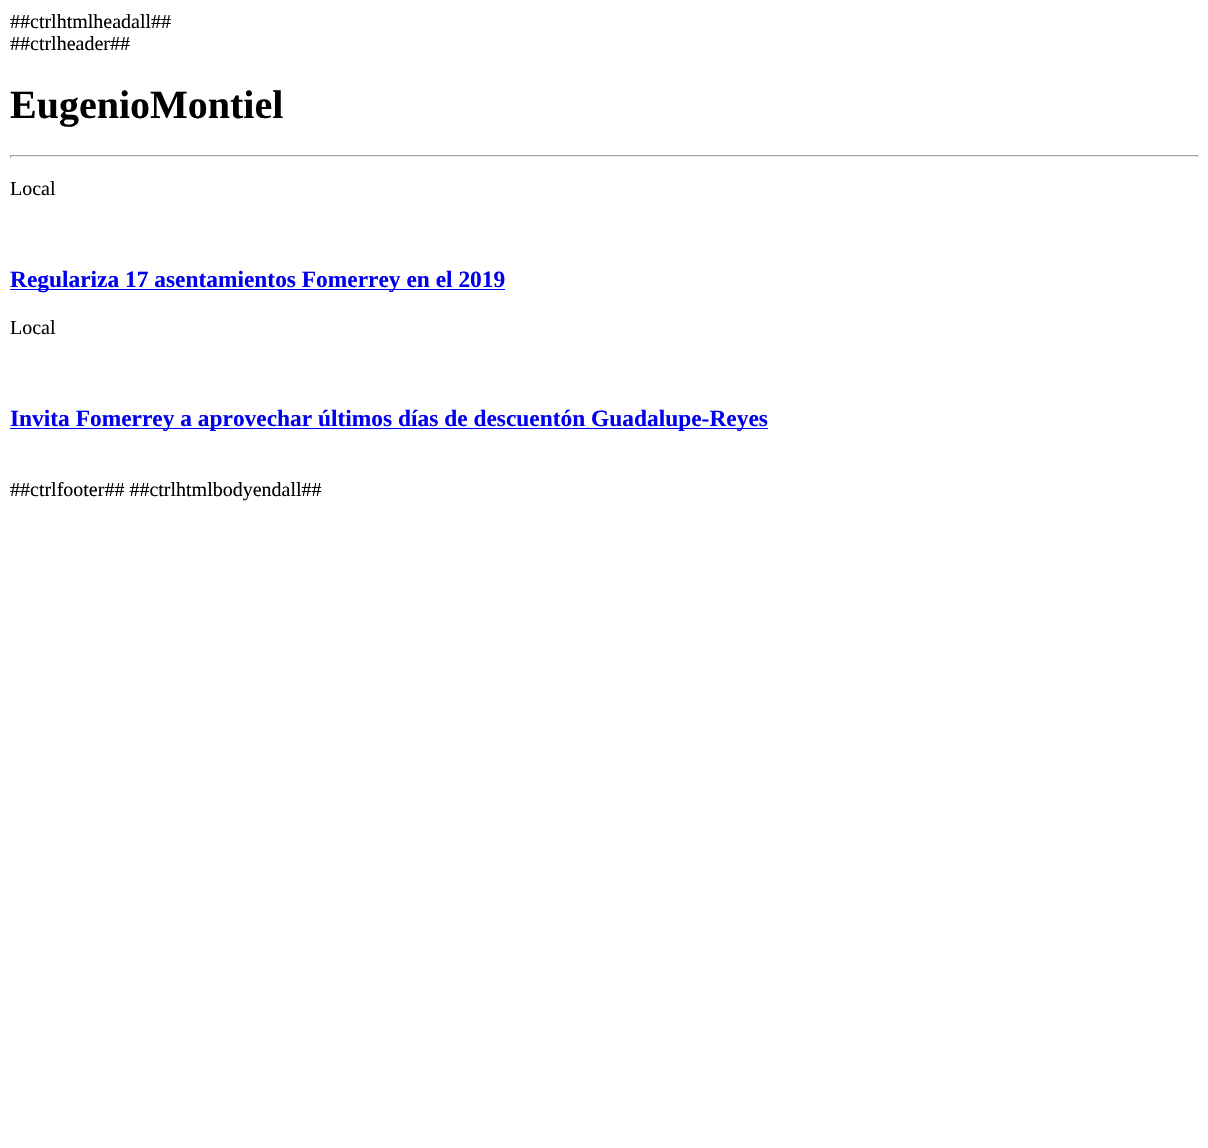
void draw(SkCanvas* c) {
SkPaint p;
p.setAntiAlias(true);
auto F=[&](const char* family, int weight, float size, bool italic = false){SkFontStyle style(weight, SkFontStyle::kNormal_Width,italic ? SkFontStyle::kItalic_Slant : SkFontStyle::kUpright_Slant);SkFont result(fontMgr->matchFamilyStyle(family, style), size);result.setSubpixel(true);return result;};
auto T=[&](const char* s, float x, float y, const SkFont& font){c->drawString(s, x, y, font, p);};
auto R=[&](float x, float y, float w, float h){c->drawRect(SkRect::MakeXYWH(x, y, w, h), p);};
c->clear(0xffffffff);
auto f1 = F("Liberation Serif",400,20);
p.setColor(0xff000000);
T("##ctrlhtmlheadall##",10,28,f1);
T("##ctrlheader##",10,50,f1);
auto f2 = F("Liberation Serif",700,40);
T("EugenioMontiel",10,118,f2);
p.setColor(0xff9f9f9f);
R(10,155,1189,1);
p.setColor(0xffeeeeee);
R(1198,155,1,3);
R(10,156,1189,1);
p.setColor(0xff9f9f9f);
R(10,155,1,3);
p.setColor(0xff000000);
T("Local",10,195,f1);
p.setColor(0xff0000ee);
R(10,289,495,1);
auto f3 = F("Liberation Serif",700,23.4);
T("Regulariza 17 asentamientos Fomerrey en el 2019",10,287,f3);
p.setColor(0xff000000);
T("Local",10,334,f1);
p.setColor(0xff0000ee);
R(10,428,758,1);
T("Invita Fomerrey a aprovechar últimos días de descuentón Guadalupe-Reyes",10,426,f3);
p.setColor(0xff000000);
T("##ctrlfooter## ##ctrlhtmlbodyendall##",10,496,f1);
}
